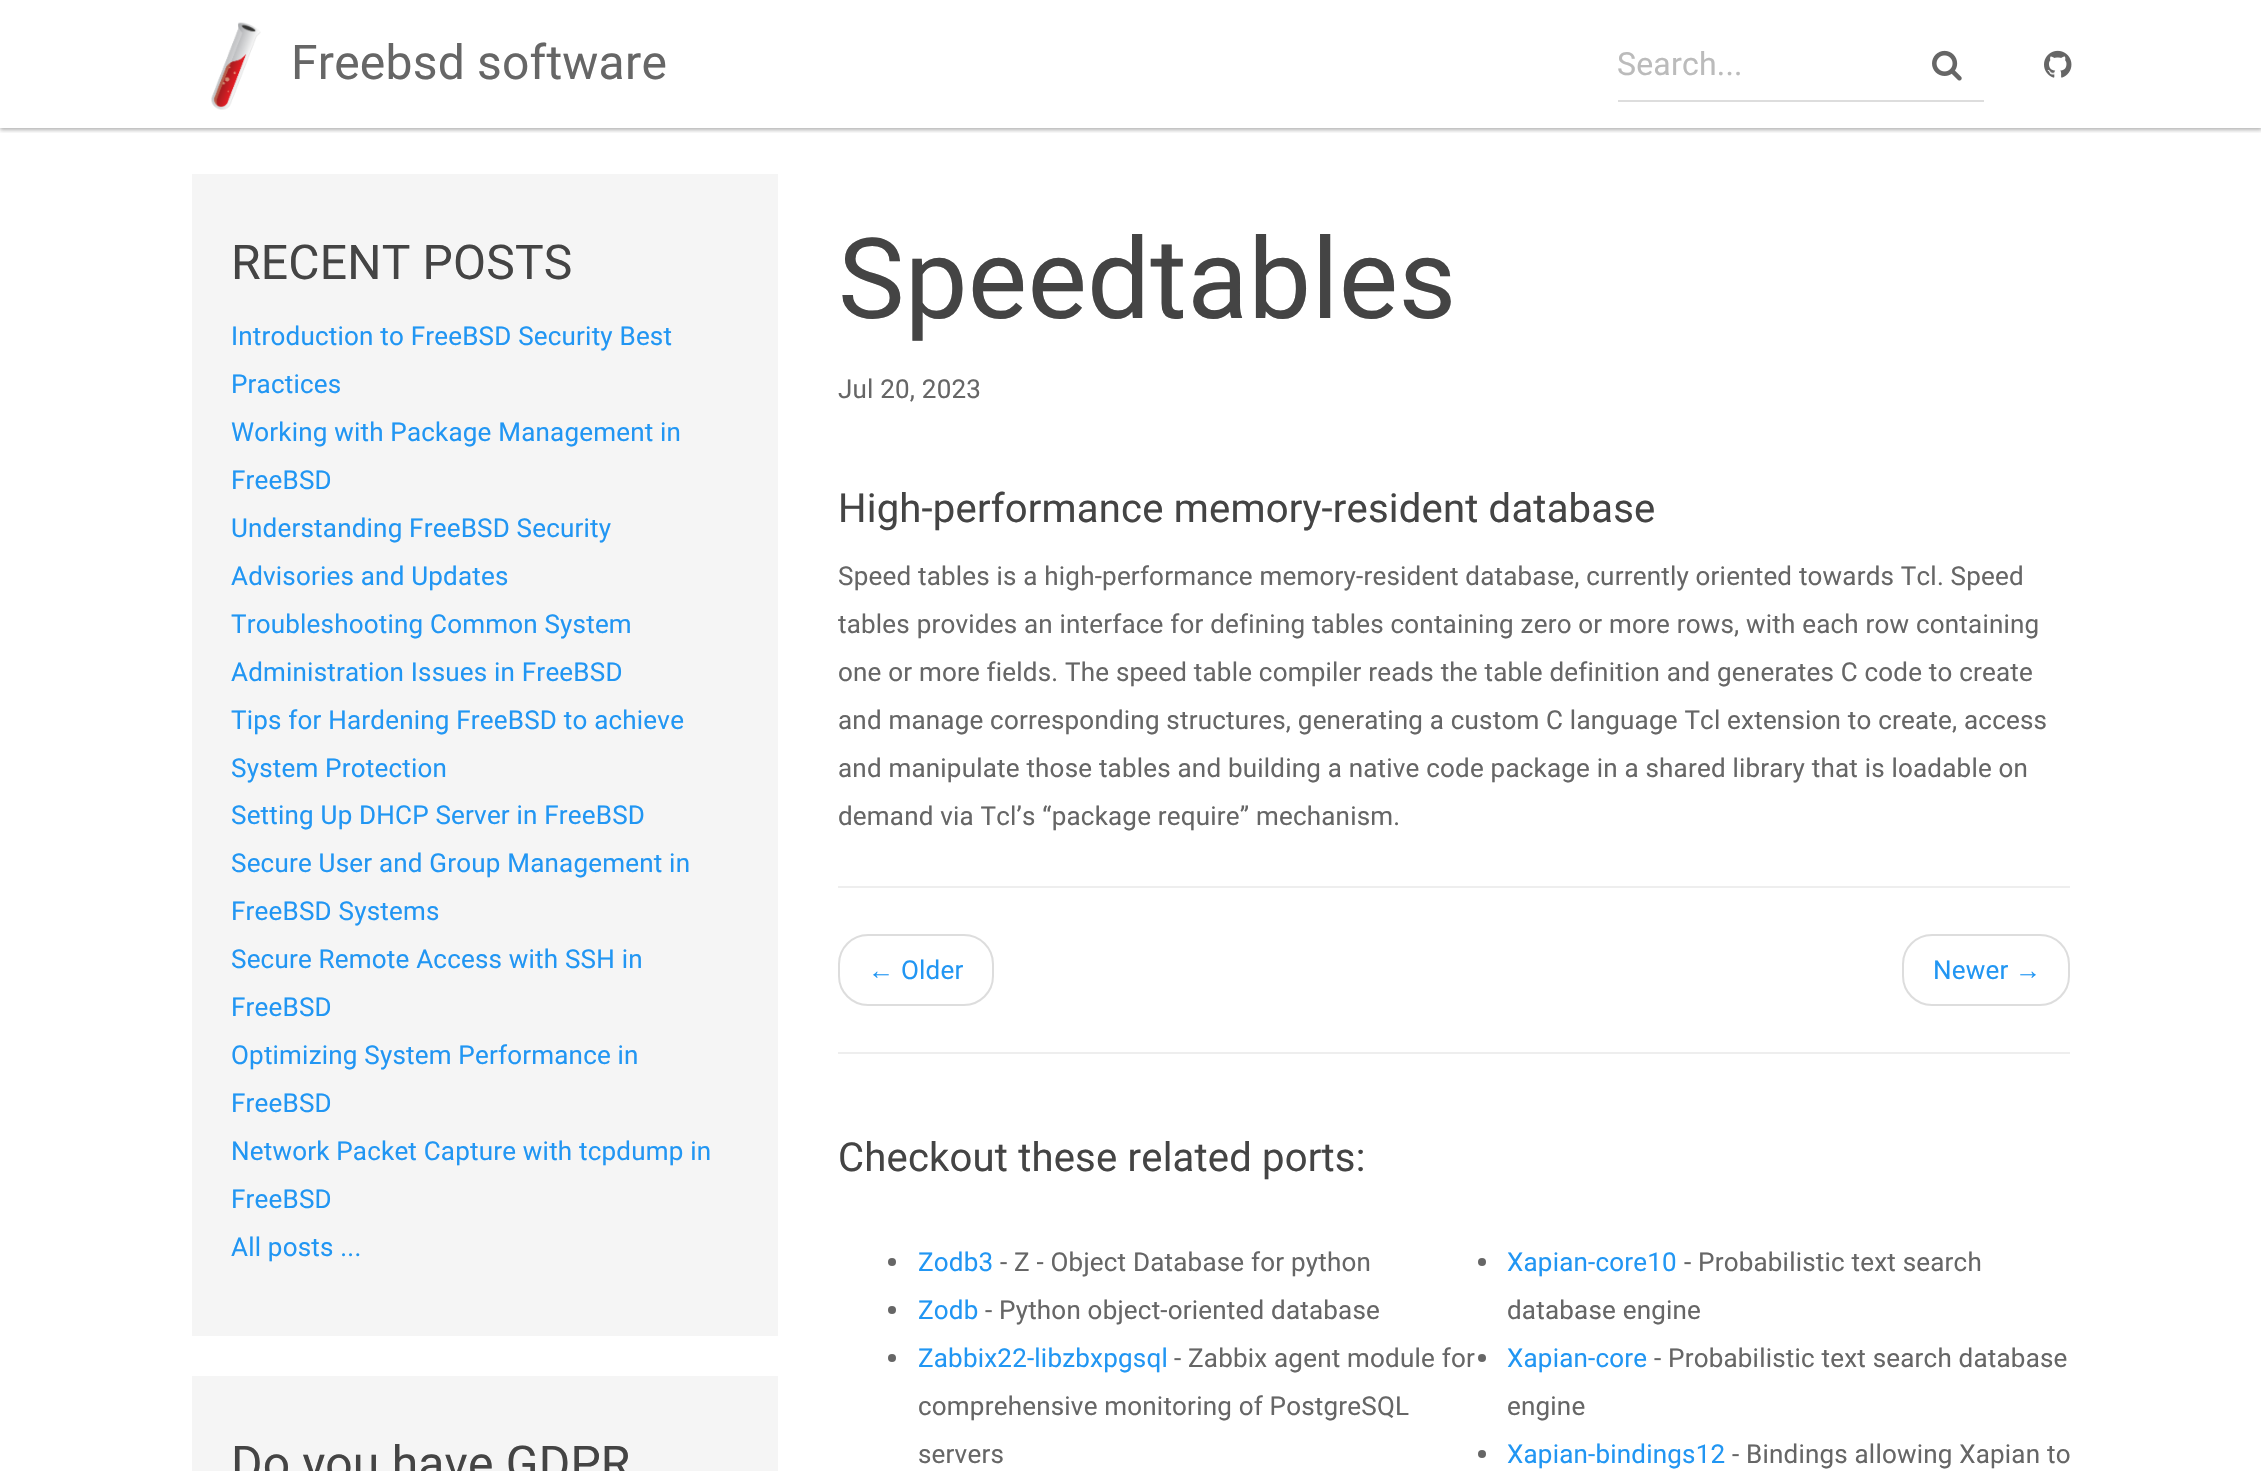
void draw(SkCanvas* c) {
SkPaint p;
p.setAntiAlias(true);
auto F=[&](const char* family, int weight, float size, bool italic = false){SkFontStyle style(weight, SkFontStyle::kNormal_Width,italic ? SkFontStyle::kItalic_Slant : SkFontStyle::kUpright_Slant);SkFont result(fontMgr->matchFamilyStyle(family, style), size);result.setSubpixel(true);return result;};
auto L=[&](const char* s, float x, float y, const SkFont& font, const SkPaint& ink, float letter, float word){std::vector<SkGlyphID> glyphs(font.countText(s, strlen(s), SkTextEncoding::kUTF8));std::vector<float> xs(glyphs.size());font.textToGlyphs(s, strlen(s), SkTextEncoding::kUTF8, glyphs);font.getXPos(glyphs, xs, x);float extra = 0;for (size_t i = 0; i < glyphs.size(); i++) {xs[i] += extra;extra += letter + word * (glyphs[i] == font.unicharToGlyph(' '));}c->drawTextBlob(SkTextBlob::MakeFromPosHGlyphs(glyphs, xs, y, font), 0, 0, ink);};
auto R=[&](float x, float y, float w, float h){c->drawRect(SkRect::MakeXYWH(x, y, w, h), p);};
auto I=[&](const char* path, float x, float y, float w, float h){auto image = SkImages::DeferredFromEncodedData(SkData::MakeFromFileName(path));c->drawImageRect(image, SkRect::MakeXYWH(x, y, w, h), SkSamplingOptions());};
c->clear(0xffffffff);
c->save();
c->clipRect(SkRect::MakeXYWH(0,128,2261,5));
p.setColor(0x4d000000);
p.setMaskFilter(SkMaskFilter::MakeBlur(kNormal_SkBlurStyle, 2));
c->drawRect(SkRect::MakeXYWH(0,2,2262,128),p);
p.setMaskFilter(nullptr);
c->restore();
I("1.png",211,22,50,88);
auto f1 = F("Roboto",400,48);
p.setColor(0xff666666);
L("Freebsd software",291,79,f1,p,.2,0);
p.setColor(0xffdddddd);
R(1618,100,366,2);
auto f2 = F("Roboto",400,32);
p.setColor(0xffbbbbbb);
L("Search...",1617,75,f2,p,.2,0);
I("2.png",1932,50,30,31);
I("3.png",2044,50,28,28);
p.setColor(0xfff5f5f5);
R(192,174,586,1162);
p.setColor(0xff444444);
L("RECENT POSTS",231,279,f1,p,.2,0);
auto f3 = F("Roboto",400,26);
p.setColor(0xff2196f3);
L("Introduction to FreeBSD Security Best",231,345,f3,p,.2,0);
L("Practices",231,393,f3,p,.2,0);
L("Working with Package Management in",231,441,f3,p,.2,0);
L("FreeBSD",231,489,f3,p,.2,0);
L("Understanding FreeBSD Security",231,537,f3,p,.2,0);
L("Advisories and Updates",231,585,f3,p,.2,0);
L("Troubleshooting Common System",231,633,f3,p,.2,0);
L("Administration Issues in FreeBSD",231,681,f3,p,.2,0);
L("Tips for Hardening FreeBSD to achieve",231,729,f3,p,.2,0);
L("System Protection",231,777,f3,p,.2,0);
L("Setting Up DHCP Server in FreeBSD",231,824,f3,p,.2,0);
L("Secure User and Group Management in",231,872,f3,p,.2,0);
L("FreeBSD Systems",231,920,f3,p,.2,0);
L("Secure Remote Access with SSH in",231,968,f3,p,.2,0);
L("FreeBSD",231,1016,f3,p,.2,0);
L("Optimizing System Performance in",231,1064,f3,p,.2,0);
L("FreeBSD",231,1112,f3,p,.2,0);
L("Network Packet Capture with tcpdump in",231,1160,f3,p,.2,0);
L("FreeBSD",231,1208,f3,p,.2,0);
L("All posts ...",231,1256,f3,p,.2,0);
p.setColor(0xfff5f5f5);
R(192,1376,586,95);
p.setColor(0xff444444);
L("Do you have GDPR",231,1480,f1,p,.2,0);
auto f4 = F("Roboto",400,112);
L("Speedtables",838,318,f4,p,.2,0);
p.setColor(0xff666666);
L("Jul 20, 2023",838,398,f3,p,.2,0);
auto f5 = F("Roboto",400,40);
p.setColor(0xff444444);
L("High-performance memory-resident database",838,522,f5,p,.2,0);
p.setColor(0xff666666);
L("Speed tables is a high-performance memory-resident database, currently oriented towards Tcl. Speed",838,585,f3,p,.2,0);
L("tables provides an interface for defining tables containing zero or more rows, with each row containing",838,633,f3,p,.2,0);
L("one or more fields. The speed table compiler reads the table definition and generates C code to create",838,681,f3,p,.2,0);
L("and manage corresponding structures, generating a custom C language Tcl extension to create, access",838,729,f3,p,.2,0);
L("and manipulate those tables and building a native code package in a shared library that is loadable on",838,777,f3,p,.2,0);
L("demand via Tcl’s “package require” mechanism.",838,825,f3,p,.2,0);
p.setColor(0xffeeeeee);
R(838,886,1232,2);
p.setStroke(true);
p.setStrokeWidth(2);
p.setColor(0xffdddddd);
c->drawRoundRect(SkRect::MakeXYWH(839,935,154,70),29,29,p);
auto f6 = F("Liberation Sans",400,26);
p.setStroke(false);
p.setColor(0xff2196f3);
L("←",868,979,f6,p,.2,0);
L("Older",901,979,f3,p,.2,0);
p.setStroke(true);
p.setColor(0xffdddddd);
c->drawRoundRect(SkRect::MakeXYWH(1903,935,166,70),29,29,p);
p.setStroke(false);
p.setColor(0xff2196f3);
L("Newer",1933,979,f3,p,.2,0);
L("→",2015,979,f6,p,.2,0);
p.setColor(0xffeeeeee);
R(838,1052,1232,2);
p.setColor(0xff444444);
L("Checkout these related ports:",838,1171,f5,p,.2,0);
p.setColor(0xff666666);
c->drawCircle(892,1262,4,p);
p.setColor(0xff2196f3);
L("Zodb3",918,1271,f3,p,.2,0);
p.setColor(0xff666666);
L("- Z - Object Database for python",1000,1271,f3,p,.2,0);
c->drawCircle(1482,1262,4,p);
p.setColor(0xff2196f3);
L("Xapian-core10",1507,1271,f3,p,.2,0);
p.setColor(0xff666666);
L("- Probabilistic text search",1684,1271,f3,p,.2,0);
L("database engine",1507,1319,f3,p,.2,0);
c->drawCircle(892,1310,4,p);
p.setColor(0xff2196f3);
L("Zodb",918,1319,f3,p,.2,0);
p.setColor(0xff666666);
L("- Python object-oriented database",985,1319,f3,p,.2,0);
c->drawCircle(892,1358,4,p);
p.setColor(0xff2196f3);
L("Zabbix22-libzbxpgsql",918,1367,f3,p,.2,0);
p.setColor(0xff666666);
L("- Zabbix agent module for",1174,1367,f3,p,.2,0);
L("comprehensive monitoring of PostgreSQL",918,1415,f3,p,.2,0);
L("servers",918,1463,f3,p,.2,0);
c->drawCircle(1482,1358,4,p);
p.setColor(0xff2196f3);
L("Xapian-core",1507,1367,f3,p,.2,0);
p.setColor(0xff666666);
L("- Probabilistic text search database",1654,1367,f3,p,.2,0);
L("engine",1507,1415,f3,p,.2,0);
c->drawCircle(1482,1454,4,p);
p.setColor(0xff2196f3);
L("Xapian-bindings12",1507,1463,f3,p,.2,0);
p.setColor(0xff666666);
L("- Bindings allowing Xapian to",1732,1463,f3,p,.2,0);
}
